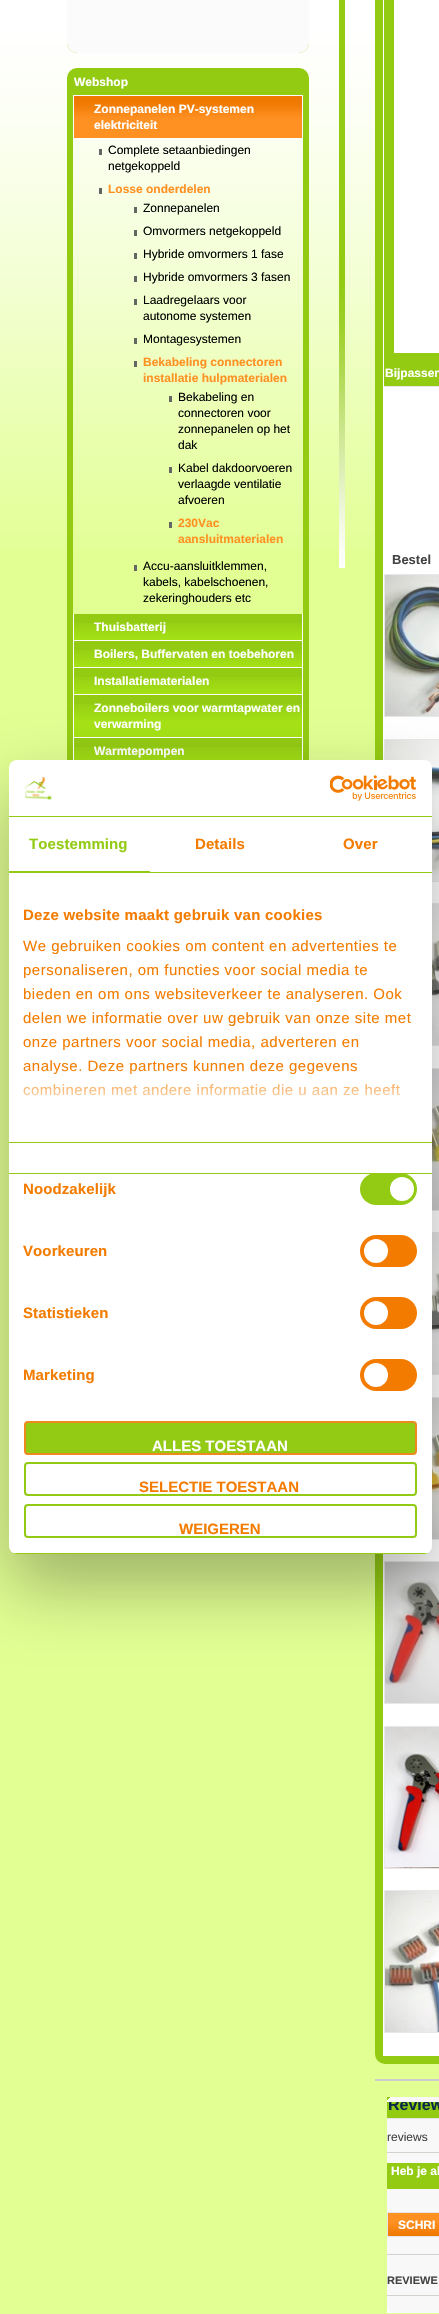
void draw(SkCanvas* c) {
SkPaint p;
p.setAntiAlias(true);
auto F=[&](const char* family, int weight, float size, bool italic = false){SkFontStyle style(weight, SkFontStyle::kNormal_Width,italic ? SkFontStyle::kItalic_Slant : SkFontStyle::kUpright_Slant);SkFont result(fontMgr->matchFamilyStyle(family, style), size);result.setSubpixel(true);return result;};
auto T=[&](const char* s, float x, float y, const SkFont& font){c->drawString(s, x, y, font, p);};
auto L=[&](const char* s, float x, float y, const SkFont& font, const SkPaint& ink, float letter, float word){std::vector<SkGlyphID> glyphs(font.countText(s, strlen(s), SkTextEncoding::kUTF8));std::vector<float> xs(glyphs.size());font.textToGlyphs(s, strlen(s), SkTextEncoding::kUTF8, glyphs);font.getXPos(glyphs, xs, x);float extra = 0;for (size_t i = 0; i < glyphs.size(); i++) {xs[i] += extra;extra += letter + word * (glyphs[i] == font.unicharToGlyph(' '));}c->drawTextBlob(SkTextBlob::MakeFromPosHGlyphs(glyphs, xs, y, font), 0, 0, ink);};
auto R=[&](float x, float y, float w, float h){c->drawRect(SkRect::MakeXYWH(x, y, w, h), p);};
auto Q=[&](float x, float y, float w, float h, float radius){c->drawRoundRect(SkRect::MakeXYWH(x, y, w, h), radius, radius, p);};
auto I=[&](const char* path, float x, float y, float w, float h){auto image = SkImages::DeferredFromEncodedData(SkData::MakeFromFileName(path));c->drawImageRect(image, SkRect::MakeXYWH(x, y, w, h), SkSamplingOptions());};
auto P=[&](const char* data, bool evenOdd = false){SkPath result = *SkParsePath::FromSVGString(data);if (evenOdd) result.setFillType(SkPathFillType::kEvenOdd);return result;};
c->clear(0xffe1ff93);
I("1.png",0,0,375,550);
p.setColor(0xff93cb13);
Q(67,-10,242,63,10);
I("2.png",67,0,242,53);
p.setStroke(true);
p.setStrokeWidth(6);
c->drawRoundRect(SkRect::MakeXYWH(70,71,236,1037),7,7,p);
p.setStroke(false);
R(73,74,230,21);
p.setColor(0xffffffff);
R(73,95,230,1);
auto f1 = F("Liberation Sans",700,12);
T("Webshop",74,86,f1);
I("3.png",74,96,228,42);
c->save();
c->clipRect(SkRect::MakeXYWH(73,96,230,518));
p.setStroke(true);
p.setStrokeWidth(1);
c->drawRect(SkRect::MakeXYWH(73.5,95.5,229,43),p);
c->restore();
p.setStroke(false);
T("Zonnepanelen PV-systemen",94,113,f1);
T("elektriciteit",94,129,f1);
p.setColor(0xff646664);
R(99,149,3,6);
auto f2 = F("Liberation Sans",400,12);
p.setColor(0xff000000);
T("Complete setaanbiedingen",108,154,f2);
T("netgekoppeld",108,170,f2);
p.setColor(0xff646664);
R(99,188,3,6);
p.setColor(0xffff9123);
T("Losse onderdelen",108,193,f1);
p.setColor(0xff646664);
R(134,207,3,6);
p.setColor(0xff000000);
T("Zonnepanelen",143,212,f2);
p.setColor(0xff646664);
R(134,230,3,6);
p.setColor(0xff000000);
T("Omvormers netgekoppeld",143,235,f2);
p.setColor(0xff646664);
R(134,253,3,6);
p.setColor(0xff000000);
T("Hybride omvormers 1 fase",143,258,f2);
p.setColor(0xff646664);
R(134,276,3,6);
p.setColor(0xff000000);
T("Hybride omvormers 3 fasen",143,281,f2);
p.setColor(0xff646664);
R(134,299,3,6);
p.setColor(0xff000000);
T("Laadregelaars voor",143,304,f2);
T("autonome systemen",143,320,f2);
p.setColor(0xff646664);
R(134,338,3,6);
p.setColor(0xff000000);
T("Montagesystemen",143,343,f2);
p.setColor(0xff646664);
R(134,361,3,6);
p.setColor(0xffff9123);
T("Bekabeling connectoren",143,366,f1);
T("installatie hulpmaterialen",143,382,f1);
p.setColor(0xff646664);
R(169,396,3,6);
p.setColor(0xff000000);
T("Bekabeling en",178,401,f2);
T("connectoren voor",178,417,f2);
T("zonnepanelen op het",178,433,f2);
T("dak",178,449,f2);
p.setColor(0xff646664);
R(169,467,3,6);
p.setColor(0xff000000);
T("Kabel dakdoorvoeren",178,472,f2);
T("verlaagde ventilatie",178,488,f2);
T("afvoeren",178,504,f2);
p.setColor(0xff646664);
R(169,522,3,6);
p.setColor(0xffff9123);
T("230Vac",178,527,f1);
T("aansluitmaterialen",178,543,f1);
p.setColor(0xff646664);
R(134,565,3,6);
p.setColor(0xff000000);
T("Accu-aansluitklemmen,",143,570,f2);
T("kabels, kabelschoenen,",143,586,f2);
T("zekeringhouders etc",143,602,f2);
p.setColor(0xff93cb13);
R(74,614,228,9);
I("4.png",74,623,228,17);
c->save();
c->clipRect(SkRect::MakeXYWH(73,614,230,27));
p.setStroke(true);
p.setColor(0xffffffff);
c->drawRect(SkRect::MakeXYWH(73.5,613.5,229,27),p);
c->restore();
p.setStroke(false);
T("Thuisbatterij",94,631,f1);
p.setColor(0xff93cb13);
R(74,641,228,9);
I("4.png",74,650,228,17);
c->save();
c->clipRect(SkRect::MakeXYWH(73,641,230,27));
p.setStroke(true);
p.setColor(0xffffffff);
c->drawRect(SkRect::MakeXYWH(73.5,640.5,229,27),p);
c->restore();
p.setStroke(false);
T("Boilers, Buffervaten en toebehoren",94,658,f1);
p.setColor(0xff93cb13);
R(74,668,228,9);
I("4.png",74,677,228,17);
c->save();
c->clipRect(SkRect::MakeXYWH(73,668,230,27));
p.setStroke(true);
p.setColor(0xffffffff);
c->drawRect(SkRect::MakeXYWH(73.5,667.5,229,27),p);
c->restore();
p.setStroke(false);
T("Installatiematerialen",94,685,f1);
p.setColor(0xff93cb13);
R(74,695,228,9);
I("5.png",74,704,228,33);
c->save();
c->clipRect(SkRect::MakeXYWH(73,695,230,43));
p.setStroke(true);
p.setColor(0xffffffff);
c->drawRect(SkRect::MakeXYWH(73.5,694.5,229,43),p);
c->restore();
p.setStroke(false);
T("Zonneboilers voor warmtapwater en",94,712,f1);
T("verwarming",94,728,f1);
p.setColor(0xff93cb13);
R(74,738,228,9);
I("6.png",74,747,228,13);
c->save();
c->clipRect(SkRect::MakeXYWH(73,738,230,27));
p.setStroke(true);
p.setColor(0xffffffff);
c->drawRect(SkRect::MakeXYWH(73.5,737.5,229,27),p);
c->restore();
p.setStroke(false);
T("Warmtepompen",94,755,f1);
I("7.png",339,0,6,568);
p.setStroke(true);
p.setStrokeWidth(8);
p.setColor(0xff93cb13);
c->drawRoundRect(SkRect::MakeXYWH(379,-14,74,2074),6,6,p);
p.setStroke(false);
p.setColor(0xffffffff);
R(384,387,55,1668);
p.setStroke(true);
p.setStrokeWidth(1);
c->drawRect(SkRect::MakeXYWH(383.5,-.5,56,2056),p);
p.setStroke(false);
p.setColor(0xff93cb13);
R(384,0,55,386);
p.setColor(0xffffffff);
R(394,0,45,353);
p.setColor(0xffe5e5e5);
R(384,386,55,1);
p.setColor(0xffffffff);
T("Bijpassen",385,377,f1);
p.setStroke(true);
p.setColor(0xffe8e8e8);
c->drawRect(SkRect::MakeXYWH(384.5,574.5,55,142),p);
I("8.png",385,575,54,141);
c->drawRect(SkRect::MakeXYWH(384.5,739.5,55,142),p);
I("9.png",385,740,54,141);
c->drawRect(SkRect::MakeXYWH(384.5,903.5,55,142),p);
I("10.png",432,904,7,141);
c->drawRect(SkRect::MakeXYWH(384.5,1068.5,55,142),p);
I("11.png",432,1069,7,141);
c->drawRect(SkRect::MakeXYWH(384.5,1232.5,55,142),p);
I("12.png",432,1233,7,141);
c->drawRect(SkRect::MakeXYWH(384.5,1397.5,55,142),p);
I("13.png",432,1398,7,141);
c->drawRect(SkRect::MakeXYWH(384.5,1561.5,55,142),p);
I("14.png",385,1562,54,141);
c->drawRect(SkRect::MakeXYWH(384.5,1726.5,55,142),p);
I("15.png",385,1727,54,141);
c->drawRect(SkRect::MakeXYWH(384.5,1890.5,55,142),p);
I("16.png",385,1891,54,141);
auto f3 = F("Liberation Sans",700,13);
p.setStroke(false);
p.setColor(0xff444444);
T("Bestel",392,564,f3);
p.setColor(0xffcccccc);
R(375,2079,64,2);
p.setColor(0xfff8f8f8);
R(387,2119,52,189);
p.setColor(0xff93cb13);
R(387,2097,52,21);
p.setColor(0xfff8f8f8);
R(392,2097,47,1);
p.setColor(0xfffbfbfb);
R(390,2097,2,1);
auto f4 = F("Liberation Sans",700,16);
p.setColor(0xff072a48);
T("Review",388,2110,f4);
p.setColor(0xfff8f8f8);
R(390,2098,49,1);
p.setColor(0xfffbfbfb);
R(389,2098,1,1);
p.setColor(0xfff8f8f8);
R(389,2099,50,1);
p.setColor(0xfffbfbfb);
R(388,2099,1,1);
p.setColor(0xfff8f8f8);
R(388,2100,51,2);
p.setColor(0xfffbfbfb);
R(387,2100,1,2);
p.setColor(0xffd4d2cc);
R(387,2152,52,1);
p.setColor(0xffe5e5e5);
R(387,2118,52,1);
p.setColor(0xff444444);
T("reviews",387,2141,f2);
p.setColor(0xff93cb13);
R(387,2163,52,26);
p.setColor(0xffffffff);
T("Heb je al",391,2175,f1);
p.setColor(0xffd4d2cc);
R(387,2254,52,1);
{
const SkColor colors[] = {0xffee7800,0xffff9123};
const float stops[] = {0,.64};
const SkPoint ends[] = {{388,2236}, {388,2213}};
p.setShader(SkGradientShader::MakeLinear(ends, colors, stops, 2, SkTileMode::kClamp));
p.setAlpha(255);
}
R(388,2213,51,23);
p.setStroke(true);
p.setShader(nullptr);
p.setColor(0xffe5e5e5);
c->drawRect(SkRect::MakeXYWH(387.5,2212.5,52,24),p);
p.setStroke(false);
p.setColor(0xffffffff);
T("SCHRI",398,2229,f1);
p.setColor(0xffd4d2cc);
R(387,2295,52,1);
auto f5 = F("Liberation Sans",700,11);
p.setColor(0xff444444);
T("REVIEWE",387,2284,f5);
p.setColor(0xffffffff);
R(387,2310,3,3);
p.setColor(0xfff8f8f8);
R(388,2308,51,2);
p.setColor(0xfffbfbfb);
R(387,2308,1,2);
p.setColor(0xfff8f8f8);
R(389,2310,50,1);
p.setColor(0xfffbfbfb);
R(388,2310,1,1);
p.setColor(0xfff8f8f8);
R(390,2311,49,1);
p.setColor(0xfffbfbfb);
R(389,2311,1,1);
p.setColor(0xfff8f8f8);
R(392,2312,47,1);
p.setColor(0xfffbfbfb);
R(390,2312,2,1);
p.setColor(0x4d000000);
p.setMaskFilter(SkMaskFilter::MakeBlur(kNormal_SkBlurStyle, 34));
c->drawRoundRect(SkRect::MakeXYWH(9,792,423,794),8,8,p);
p.setMaskFilter(nullptr);
p.setColor(0xffffffff);
Q(9,760,423,794,8);
p.setColor(0xff93cb14);
R(9,816,423,1);
I("17.png",23,777,29,23);
I("18.png",330,775,86,26);
R(9,872,423,1);
R(9,871,141,1);
auto f6 = F("Liberation Sans",700,15);
L("Toestemming",29,849,f6,p,.1,0);
p.setColor(0xfff37c00);
L("Details",195,849,f6,p,.1,0);
L("Over",343,849,f6,p,.1,0);
p.setColor(0xff93cb14);
R(9,1142,423,1);
p.setColor(0xfff37c00);
L("Deze website maakt gebruik van cookies",23,920,f6,p,.25,0);
auto f7 = F("Liberation Sans",400,15);
L("We gebruiken cookies om content en advertenties te",23,951,f7,p,.5,0);
L("personaliseren, om functies voor social media te",23,975,f7,p,.5,0);
L("bieden en om ons websiteverkeer te analyseren. Ook",23,999,f7,p,.5,0);
L("delen we informatie over uw gebruik van onze site met",23,1023,f7,p,.5,0);
L("onze partners voor social media, adverteren en",23,1047,f7,p,.5,0);
L("analyse. Deze partners kunnen deze gegevens",23,1071,f7,p,.5,0);
L("combineren met andere informatie die u aan ze heeft",23,1095,f7,p,.5,0);
{
const SkColor colors[] = {0xffffffff,0xccffffff,0x00ffffff};
const float stops[] = {0,.5,1};
const SkPoint ends[] = {{214,1142}, {214,1067}};
p.setShader(SkGradientShader::MakeLinear(ends, colors, stops, 3, SkTileMode::kClamp));
p.setAlpha(255);
}
R(23,1068,377,28);
p.setShader(nullptr);
p.setColor(0xff93cb14);
R(9,1173,423,1);
p.setColor(0xfff37c00);
L("Noodzakelijk",23,1194,f6,p,.1,0);
p.setColor(0xff93cb14);
Q(360,1173,57,32,16);
p.setColor(0xffffffff);
c->drawCircle(402,1189,12,p);
p.setColor(0xfff37c00);
L("Voorkeuren",23,1256,f6,p,.1,0);
Q(360,1235,57,32,16);
p.setColor(0xffffffff);
c->drawCircle(376,1251,12,p);
p.setColor(0xfff37c00);
L("Statistieken",23,1318,f6,p,.1,0);
Q(360,1297,57,32,16);
p.setColor(0xffffffff);
c->drawCircle(376,1313,12,p);
p.setColor(0xfff37c00);
L("Marketing",23,1380,f6,p,.1,0);
Q(360,1359,57,32,16);
p.setColor(0xffffffff);
c->drawCircle(376,1375,12,p);
c->save();
c->clipPath(P("M17 760h407c4.5 0 8 3.5 8 8v778c0 4.5-3.5 8-8 8h-407c-4.5 0-8-3.5-8-8v-778c0-4.5 3.5-8 8-8z"),true);
p.setColor(0xff93cb14);
R(9,1553,423,1);
c->restore();
c->drawRoundRect(SkRect::MakeXYWH(25,1422,391,32),3,3,p);
p.setStroke(true);
p.setStrokeWidth(2);
p.setColor(0xffed891d);
c->drawRoundRect(SkRect::MakeXYWH(25,1422,391,32),3,3,p);
p.setStroke(false);
p.setColor(0xffffffff);
T("ALLES TOESTAAN",152,1451,f6);
p.setStroke(true);
p.setColor(0xff93cb14);
c->drawRoundRect(SkRect::MakeXYWH(25,1463,391,32),3,3,p);
p.setStroke(false);
p.setColor(0xfff37c00);
T("SELECTIE TOESTAAN",139,1492,f6);
p.setStroke(true);
p.setColor(0xff93cb14);
c->drawRoundRect(SkRect::MakeXYWH(25,1505,391,32),3,3,p);
p.setStroke(false);
p.setColor(0xfff37c00);
T("WEIGEREN",179,1534,f6);
}
